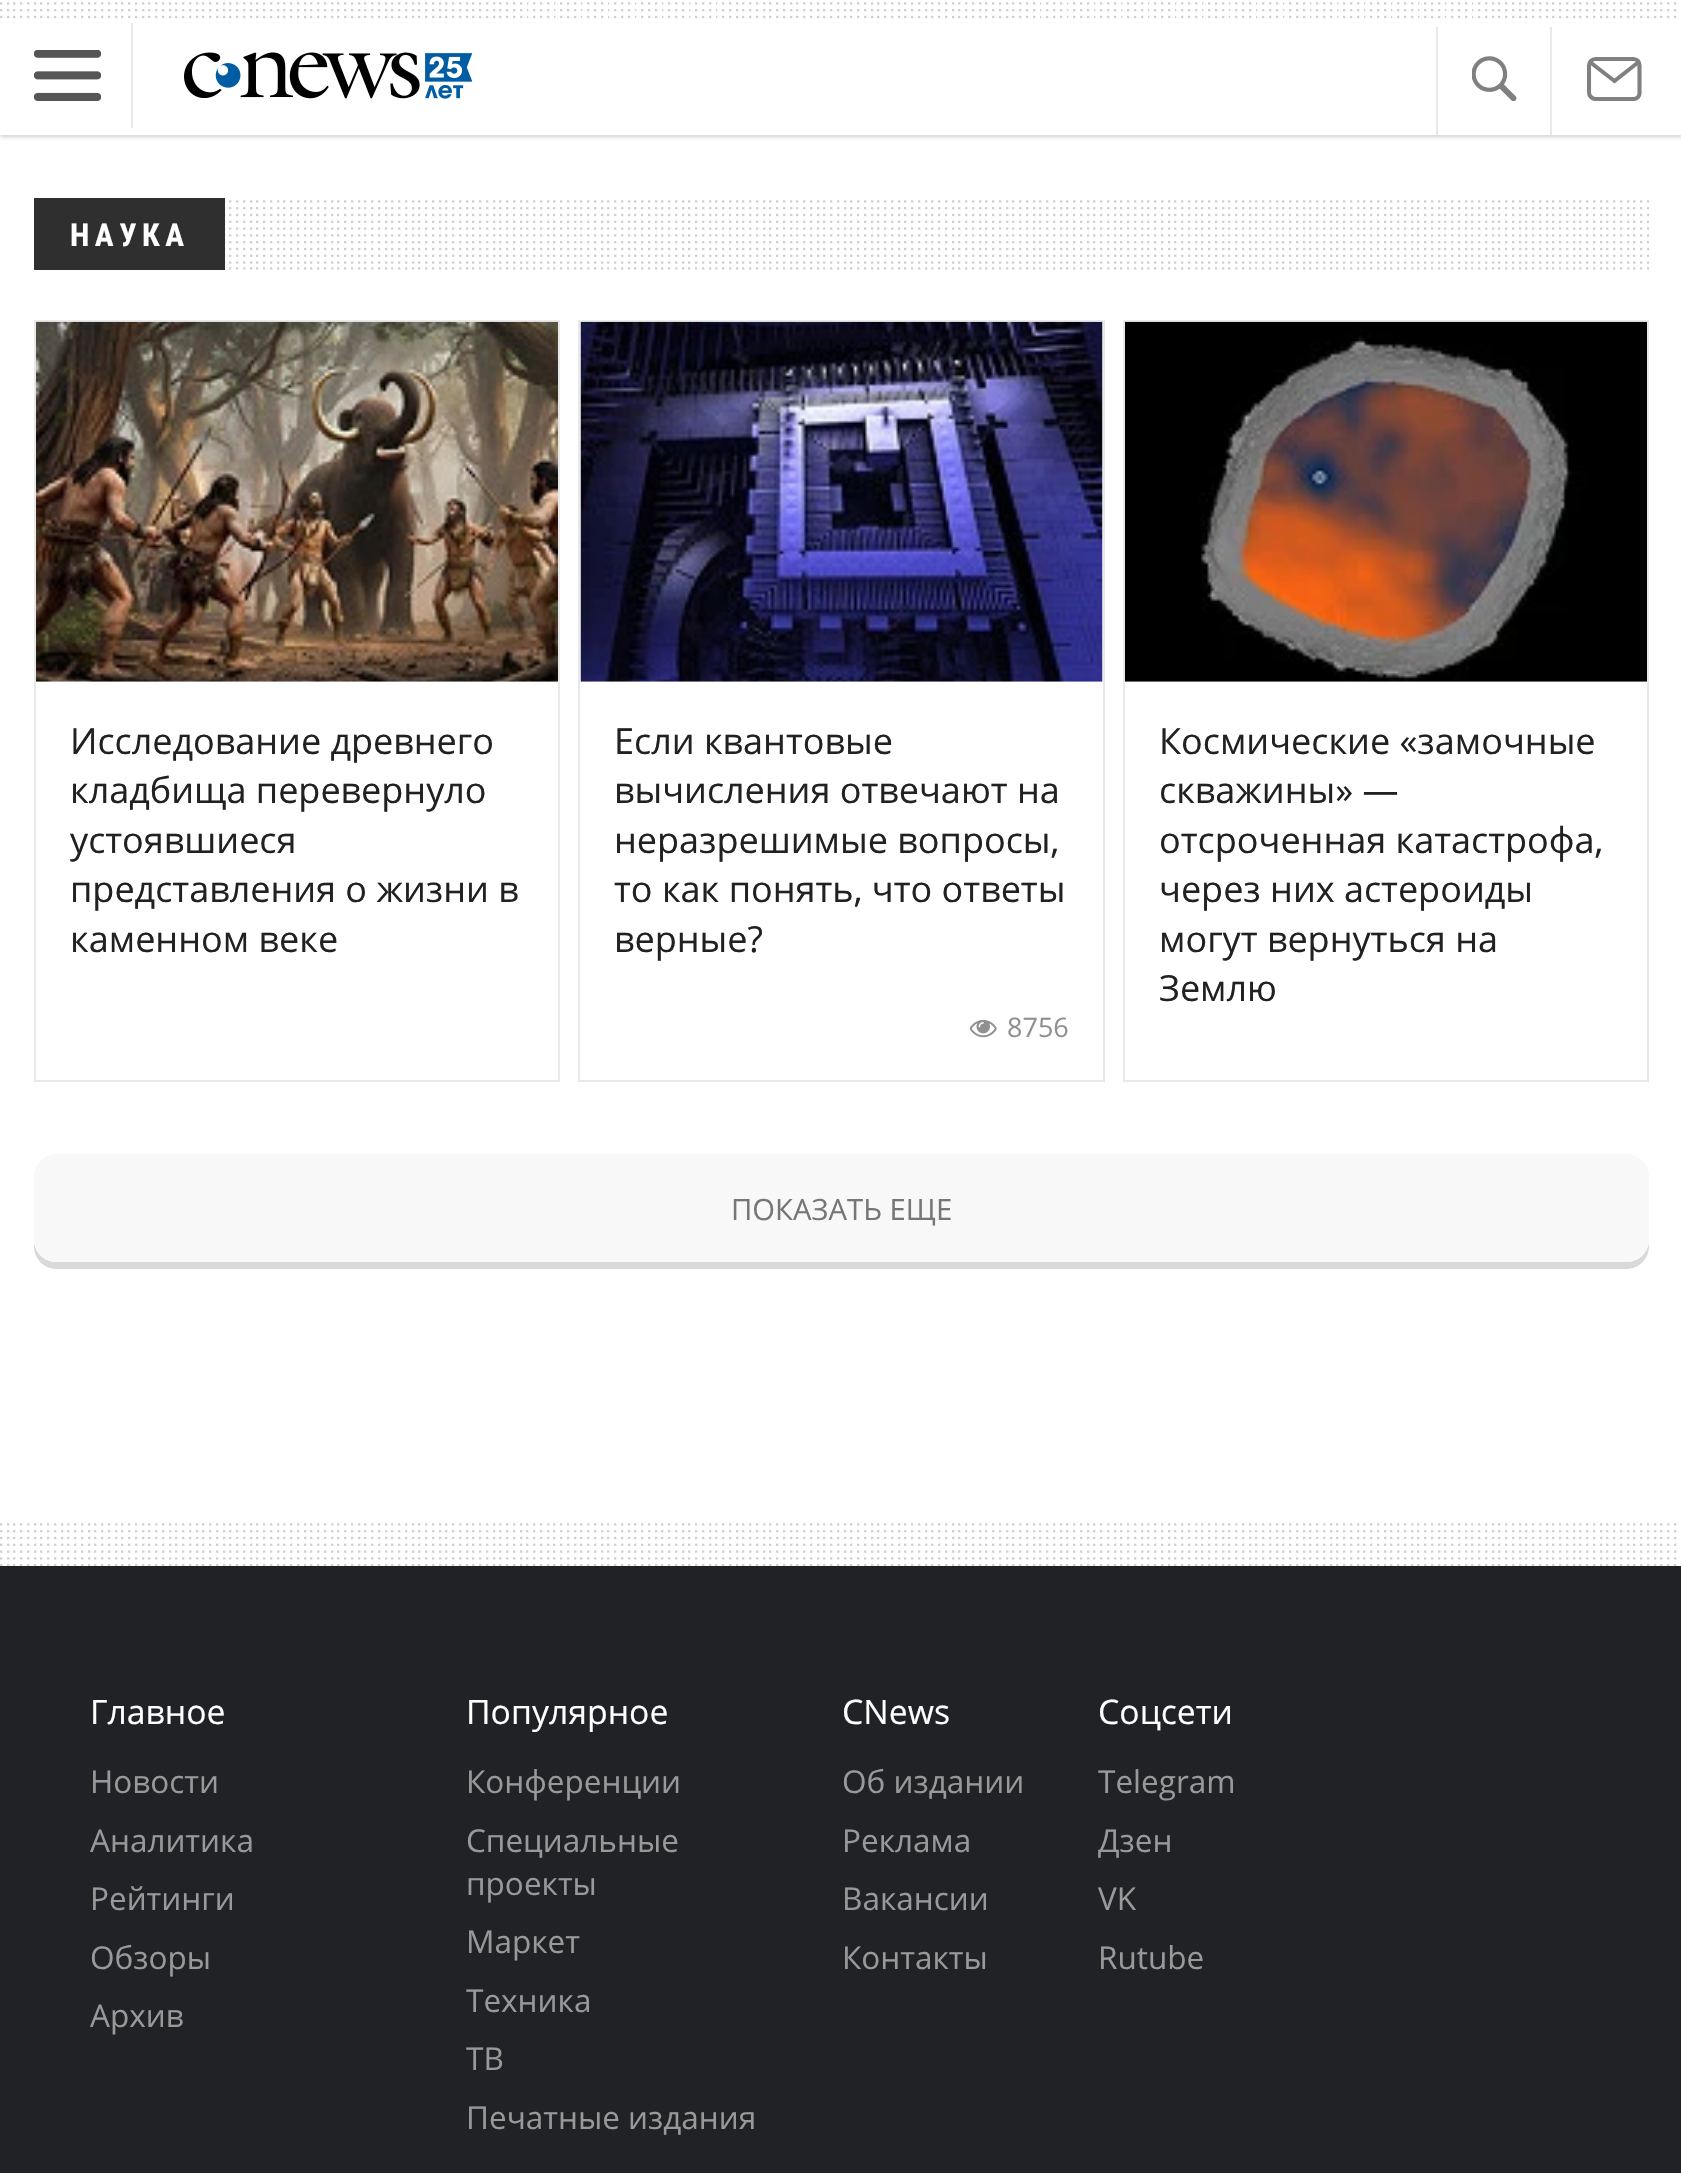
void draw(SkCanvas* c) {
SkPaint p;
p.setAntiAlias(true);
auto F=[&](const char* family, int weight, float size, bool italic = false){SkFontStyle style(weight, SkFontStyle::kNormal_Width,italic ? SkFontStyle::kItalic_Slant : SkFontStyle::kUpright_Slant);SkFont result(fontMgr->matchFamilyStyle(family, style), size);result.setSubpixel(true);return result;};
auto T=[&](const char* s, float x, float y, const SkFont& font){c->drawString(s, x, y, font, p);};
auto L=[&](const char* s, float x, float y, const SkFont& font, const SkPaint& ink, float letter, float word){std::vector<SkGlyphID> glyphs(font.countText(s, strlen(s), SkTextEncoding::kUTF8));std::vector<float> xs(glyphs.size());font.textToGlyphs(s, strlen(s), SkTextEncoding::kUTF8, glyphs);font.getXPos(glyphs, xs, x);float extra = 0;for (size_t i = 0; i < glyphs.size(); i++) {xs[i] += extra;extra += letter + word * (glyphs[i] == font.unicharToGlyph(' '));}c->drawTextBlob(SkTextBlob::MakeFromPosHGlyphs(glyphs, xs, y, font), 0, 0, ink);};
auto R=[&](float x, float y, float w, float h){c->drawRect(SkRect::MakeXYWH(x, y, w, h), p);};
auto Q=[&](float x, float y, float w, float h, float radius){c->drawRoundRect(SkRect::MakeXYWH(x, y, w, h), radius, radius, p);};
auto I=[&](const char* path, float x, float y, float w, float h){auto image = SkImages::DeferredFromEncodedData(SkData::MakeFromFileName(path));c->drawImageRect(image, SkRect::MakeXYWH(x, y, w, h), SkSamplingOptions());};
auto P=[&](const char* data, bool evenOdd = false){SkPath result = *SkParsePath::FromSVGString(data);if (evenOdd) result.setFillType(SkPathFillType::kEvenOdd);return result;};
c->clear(0xffffffff);
p.setColor(0x33102027);
p.setMaskFilter(SkMaskFilter::MakeBlur(kNormal_SkBlurStyle, 2));
c->drawRect(SkRect::MakeXYWH(0,2,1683,135),p);
p.setMaskFilter(nullptr);
p.setColor(0xffffffff);
R(0,0,1681,135);
I("1.png",0,2,1677,21);
p.setColor(0xffe9e9e9);
R(131,23,2,105);
I("2.png",34,50,67,51);
I("3.png",184,52,289,47);
R(1436,27,2,108);
I("4.png",1472,56,45,45);
R(1550,27,2,108);
c->save();
c->clipRect(SkRect::MakeXYWH(1586,56,57,45));
p.setStroke(true);
p.setStrokeWidth(4.1);
p.setColor(0xff808080);
c->drawPath(P("M1633.5 99h-38c-3.5 0-6.5-3-6.5-6.5v-27c0-3.5 3-6.5 6.5-6.5h38c3.5 0 6 3 6 6.5v27c.5 3.5-2.5 6.5-6 6.5z"),p);
c->restore();
p.setStrokeCap(SkPaint::kRound_Cap);
c->drawPath(P("M1614.5 81l-24-18.5m47.5 0l-23.5 18.5"),p);
I("5.png",225,200,1425,70);
p.setStroke(false);
p.setColor(0xff2f2f2f);
R(34,198,191,72);
auto f1 = F("Roboto Condensed",700,31.5);
p.setColor(0xffffffff);
L("НАУКА",70,246,f1,p,5.5,0);
p.setStroke(true);
p.setStrokeWidth(2);
p.setStrokeCap(SkPaint::kButt_Cap);
p.setColor(0xffe9e9e9);
c->drawRect(SkRect::MakeXYWH(35,321,524,760),p);
I("6.png",36,321,522,361);
auto f2 = F("Open Sans",400,36);
p.setStroke(false);
p.setColor(0xff212121);
T("Исследование древнего",70,754,f2);
T("кладбища перевернуло",70,803,f2);
T("устоявшиеся",70,853,f2);
T("представления о жизни в",70,902,f2);
T("каменном веке",70,952,f2);
p.setStroke(true);
p.setColor(0xffe9e9e9);
c->drawRect(SkRect::MakeXYWH(579,321,525,760),p);
I("7.png",580,321,523,361);
p.setStroke(false);
p.setColor(0xff212121);
T("Если квантовые",614,754,f2);
T("вычисления отвечают на",614,803,f2);
T("неразрешимые вопросы,",614,853,f2);
T("то как понять, что ответы",614,902,f2);
T("верные?",614,952,f2);
I("8.png",969,1019,28,19);
auto f3 = F("Open Sans",400,27);
p.setColor(0xff909090);
T("8756",1007,1037,f3);
p.setStroke(true);
p.setColor(0xffe9e9e9);
c->drawRect(SkRect::MakeXYWH(1124,321,524,760),p);
I("9.png",1125,321,522,361);
p.setStroke(false);
p.setColor(0xff212121);
T("Космические «замочные",1159,754,f2);
T("скважины» —",1159,803,f2);
T("отсроченная катастрофа,",1159,853,f2);
T("через них астероиды",1159,902,f2);
T("могут вернуться на",1159,952,f2);
T("Землю",1159,1001,f2);
p.setColor(0xffd9d9d9);
c->drawPath(P("M34 1243v3c0 13 10 23 23 23h1569c13 0 23-10 23-23v-3c-2 11-11 19-22 19h-1571c-11 0-20-8-22-19z"),p);
p.setColor(0xfff8f8f8);
Q(34,1154,1615,108,23);
auto f4 = F("Open Sans",400,29.25);
p.setColor(0xff767676);
T("ПОКАЗАТЬ ЕЩЕ",731,1220,f4);
p.setColor(0xff212225);
R(0,1566,1681,607);
I("10.png",0,1523,1677,43);
auto f5 = F("Open Sans",400,33.75);
p.setColor(0xffffffff);
T("Главное",90,1724,f5);
auto f6 = F("Open Sans",400,31.5);
p.setColor(0xff999999);
T("Новости",90,1793,f6);
T("Аналитика",90,1852,f6);
T("Рейтинги",90,1910,f6);
T("Обзоры",90,1969,f6);
T("Архив",90,2027,f6);
p.setColor(0xffffffff);
T("Популярное",466,1724,f5);
p.setColor(0xff999999);
T("Конференции",466,1793,f6);
T("Специальные",466,1852,f6);
T("проекты",466,1895,f6);
T("Маркет",466,1953,f6);
T("Техника",466,2012,f6);
T("ТВ",466,2070,f6);
T("Печатные издания",466,2129,f6);
p.setColor(0xffffffff);
T("CNews",842,1724,f5);
p.setColor(0xff999999);
T("Об издании",842,1793,f6);
T("Реклама",842,1852,f6);
T("Вакансии",842,1910,f6);
T("Контакты",842,1969,f6);
p.setColor(0xffffffff);
T("Соцсети",1098,1724,f5);
p.setColor(0xff999999);
T("Telegram",1098,1793,f6);
T("Дзен",1098,1852,f6);
T("VK",1098,1910,f6);
T("Rutube",1098,1969,f6);
}
